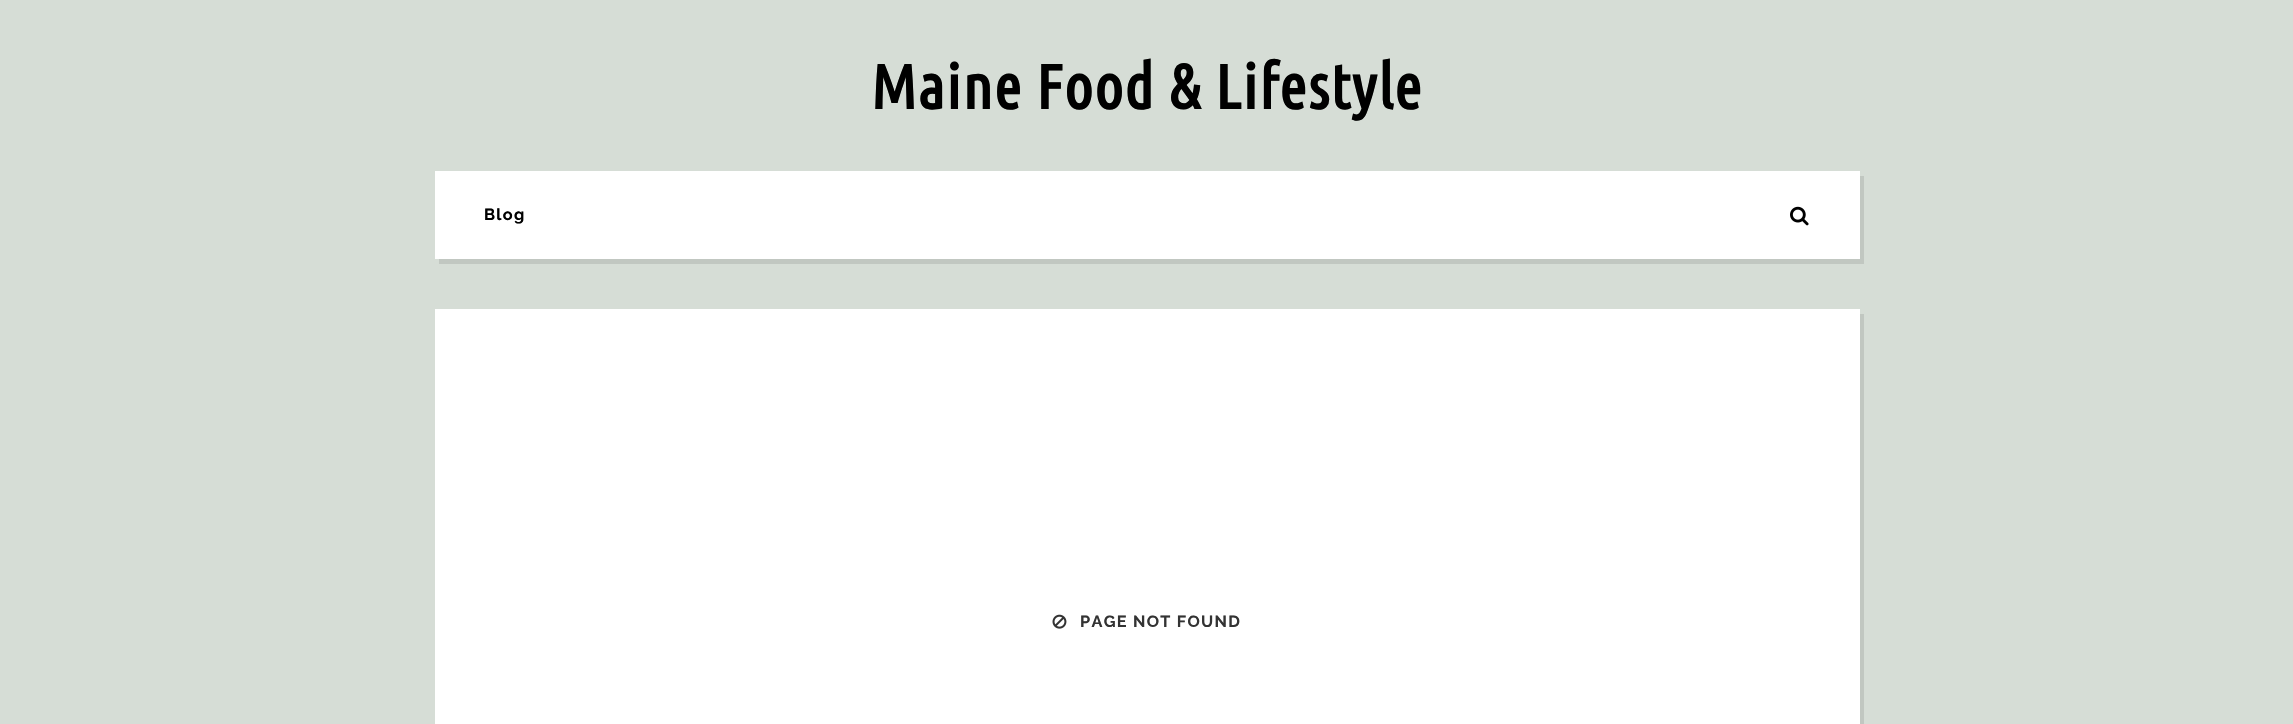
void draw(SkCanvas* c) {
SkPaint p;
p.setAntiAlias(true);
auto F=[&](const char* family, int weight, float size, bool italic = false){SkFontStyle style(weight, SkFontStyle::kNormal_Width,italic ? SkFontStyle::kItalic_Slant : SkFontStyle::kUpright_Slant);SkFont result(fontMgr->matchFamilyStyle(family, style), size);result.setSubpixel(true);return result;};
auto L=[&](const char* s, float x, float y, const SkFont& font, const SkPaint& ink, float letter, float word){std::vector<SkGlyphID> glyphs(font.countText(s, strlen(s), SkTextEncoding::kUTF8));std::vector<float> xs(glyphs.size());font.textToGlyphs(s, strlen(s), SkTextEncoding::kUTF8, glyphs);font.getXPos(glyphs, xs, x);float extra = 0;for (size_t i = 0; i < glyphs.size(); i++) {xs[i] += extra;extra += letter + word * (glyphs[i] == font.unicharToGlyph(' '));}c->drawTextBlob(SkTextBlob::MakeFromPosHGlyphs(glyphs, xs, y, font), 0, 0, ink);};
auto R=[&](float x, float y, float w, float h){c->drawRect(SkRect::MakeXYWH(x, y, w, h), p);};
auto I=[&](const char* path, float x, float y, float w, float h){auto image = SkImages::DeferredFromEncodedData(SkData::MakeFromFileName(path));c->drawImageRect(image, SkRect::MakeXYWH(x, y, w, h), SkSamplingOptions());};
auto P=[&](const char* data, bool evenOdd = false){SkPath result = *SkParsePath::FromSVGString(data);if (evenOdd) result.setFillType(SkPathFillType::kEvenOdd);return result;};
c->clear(0xffd6ddd6);
auto f1 = F("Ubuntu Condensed",700,62.5);
p.setColor(0xff000000);
L("Maine Food & Lifestyle",871,109,f1,p,1.3,0);
p.setColor(0xffc1c7c1);
c->drawPath(P("M439 259v5h1425v-88h-4v83z"),p);
p.setColor(0xffffffff);
R(435,171,1425,88);
auto f2 = F("Raleway",700,16.25);
p.setColor(0xff000000);
L("Blog",484,220,f2,p,1.3,0);
I("1.png",1790,206,19,20);
p.setColor(0xffc1c7c1);
c->drawPath(P("M439 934v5h1425v-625h-4v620z"),p);
p.setColor(0xffffffff);
R(435,309,1425,415);
I("2.png",1052,614,15,15);
p.setColor(0xff333333);
L("PAGE NOT FOUND",1080,627,f2,p,1.3,0);
}
